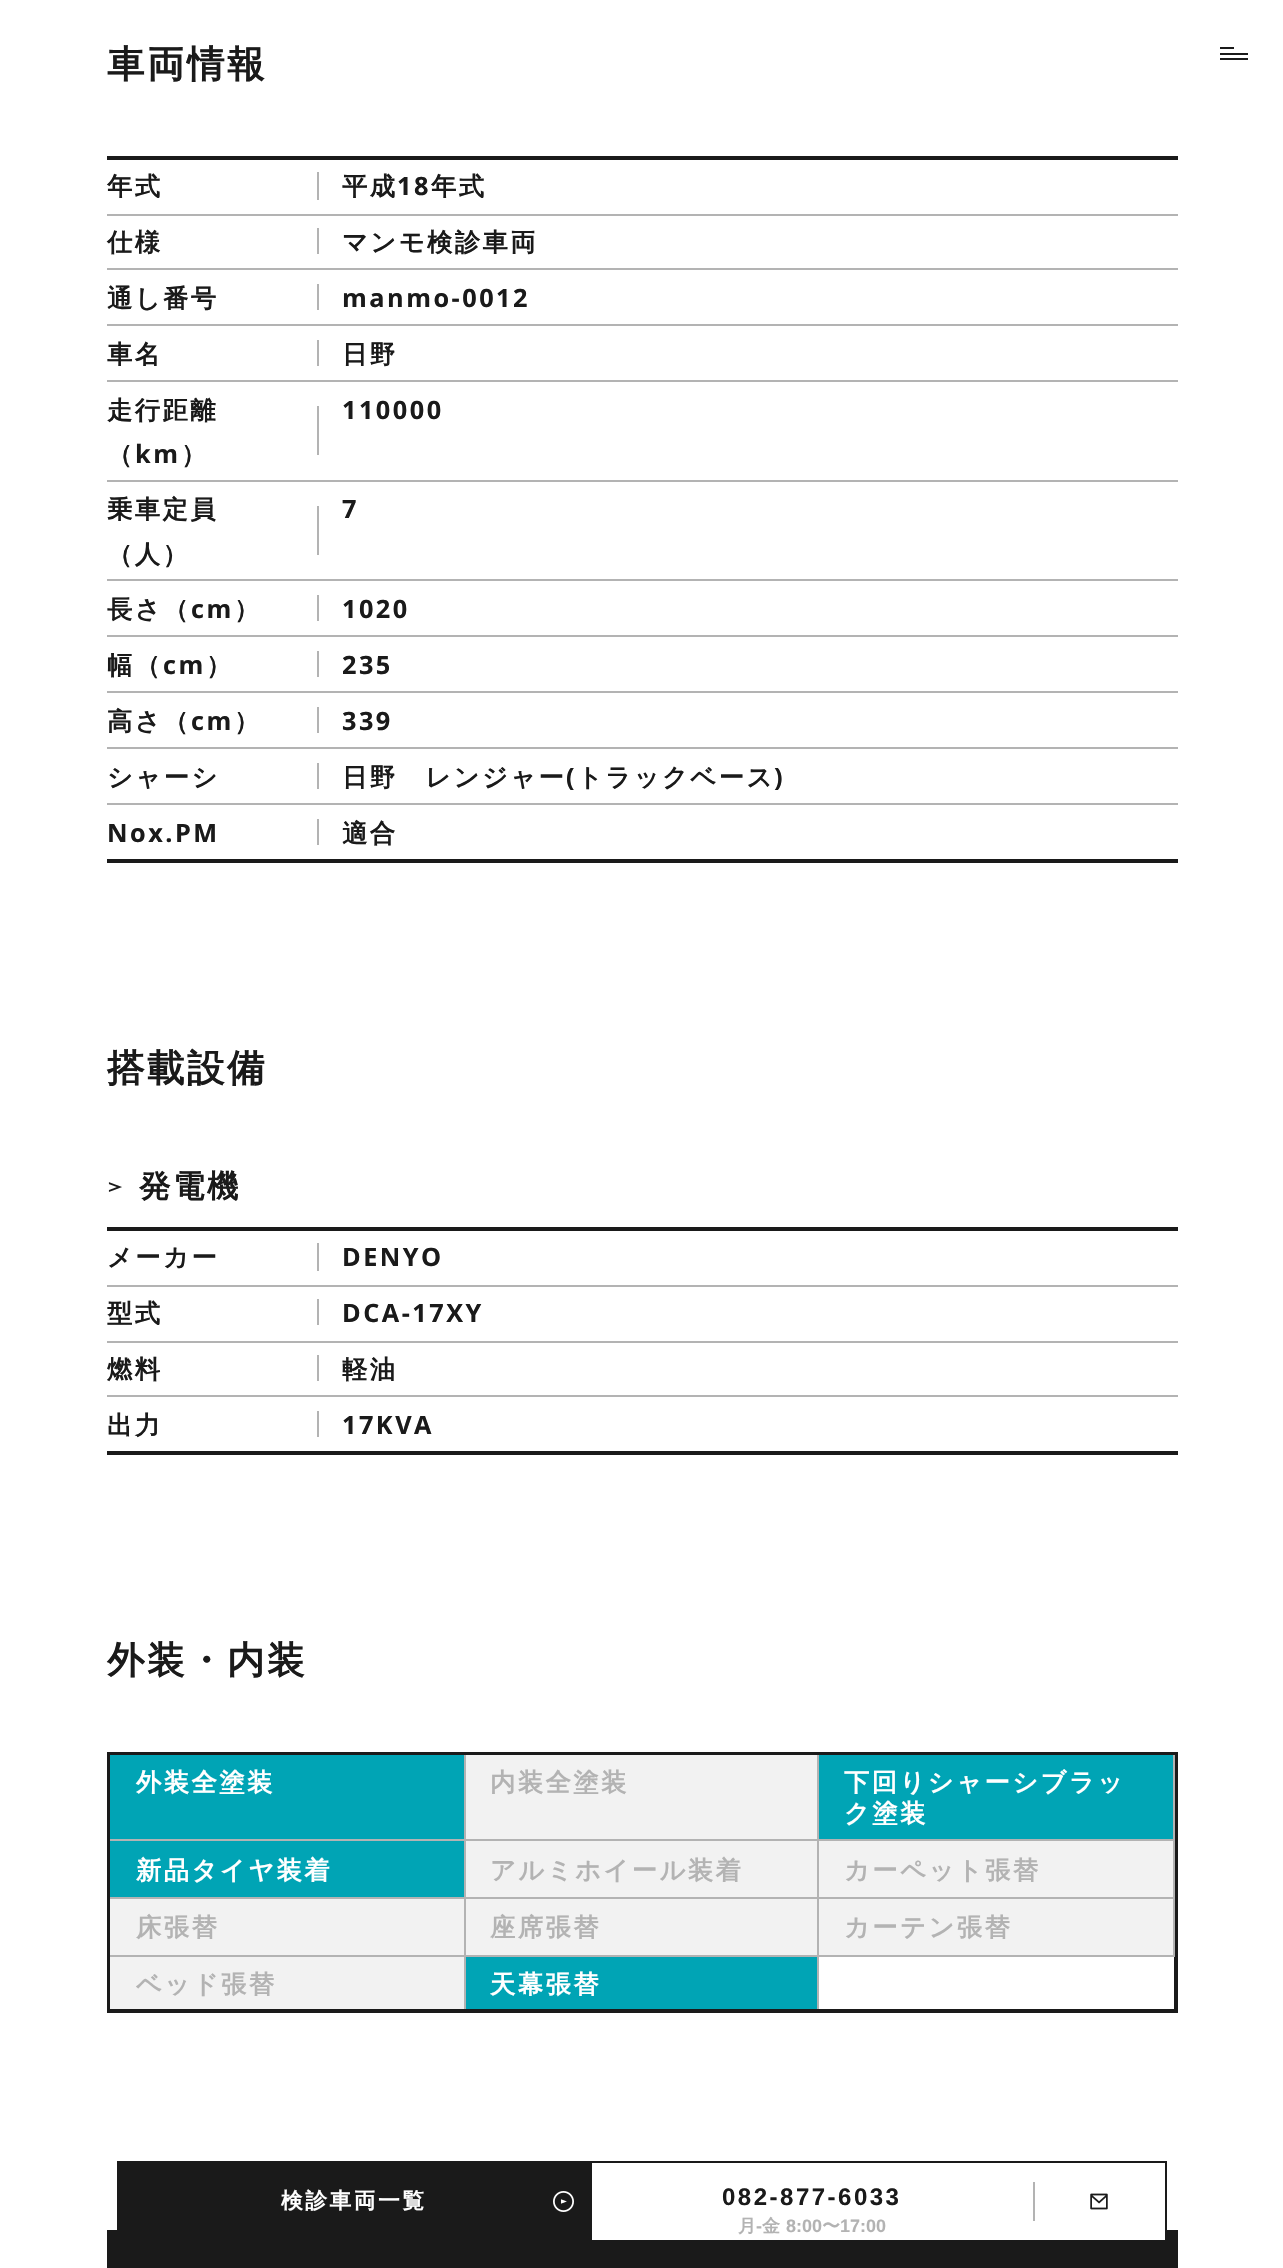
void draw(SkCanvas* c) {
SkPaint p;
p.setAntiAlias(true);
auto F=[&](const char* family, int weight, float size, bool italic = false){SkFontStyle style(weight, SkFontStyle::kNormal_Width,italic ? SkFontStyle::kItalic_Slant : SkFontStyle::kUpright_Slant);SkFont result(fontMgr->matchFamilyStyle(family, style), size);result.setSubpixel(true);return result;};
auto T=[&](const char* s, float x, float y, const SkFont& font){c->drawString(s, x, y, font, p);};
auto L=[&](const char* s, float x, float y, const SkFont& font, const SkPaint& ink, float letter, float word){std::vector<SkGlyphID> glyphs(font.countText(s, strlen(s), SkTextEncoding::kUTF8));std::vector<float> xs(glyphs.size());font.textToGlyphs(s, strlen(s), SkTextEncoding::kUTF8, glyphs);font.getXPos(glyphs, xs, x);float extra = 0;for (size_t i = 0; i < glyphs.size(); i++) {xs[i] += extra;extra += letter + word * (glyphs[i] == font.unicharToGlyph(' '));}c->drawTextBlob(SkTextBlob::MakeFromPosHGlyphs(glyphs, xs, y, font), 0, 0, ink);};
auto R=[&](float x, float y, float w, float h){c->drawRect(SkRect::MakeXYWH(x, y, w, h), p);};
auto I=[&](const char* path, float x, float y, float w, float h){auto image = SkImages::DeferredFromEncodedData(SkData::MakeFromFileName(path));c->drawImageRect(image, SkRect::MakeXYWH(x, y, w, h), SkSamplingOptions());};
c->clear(0xffffffff);
auto f1 = F("WenQuanYi Zen Hei",700,37.5);
p.setColor(0xff1a1a1a);
L("車両情報",107,77,f1,p,2.5,0);
R(107,156,1071,4);
R(107,859,1071,4);
auto f2 = F("WenQuanYi Zen Hei",700,25.25);
L("年式",107,195,f2,p,2.5,0);
p.setColor(0xffb3b3b3);
R(317,172,2,28);
p.setColor(0xff1a1a1a);
L("平成",342,195,f2,p,2.5,0);
auto f3 = F("Open Sans",700,25.25);
L("18",397,195,f3,p,2.5,0);
L("年式",431,195,f2,p,2.5,0);
L("仕様",107,251,f2,p,2.5,0);
p.setColor(0xffb3b3b3);
R(107,214,1071,2);
R(317,228,2,26);
p.setColor(0xff1a1a1a);
L("マンモ検診車両",342,251,f2,p,2.5,0);
L("通し番号",107,307,f2,p,2.5,0);
p.setColor(0xffb3b3b3);
R(107,268,1071,2);
R(317,284,2,26);
p.setColor(0xff1a1a1a);
L("manmo-0012",342,307,f3,p,2.5,0);
L("車名",107,363,f2,p,2.5,0);
p.setColor(0xffb3b3b3);
R(107,324,1071,2);
R(317,340,2,26);
p.setColor(0xff1a1a1a);
L("日野",342,363,f2,p,2.5,0);
L("走行距離",107,419,f2,p,2.5,0);
L("（",107,463,f2,p,2.5,0);
L("km",135,463,f3,p,2.5,0);
L("）",181,463,f2,p,2.5,0);
p.setColor(0xffb3b3b3);
R(107,380,1071,2);
R(317,406,2,49);
p.setColor(0xff1a1a1a);
L("110000",342,419,f3,p,2.5,0);
L("乗車定員",107,518,f2,p,2.5,0);
L("（人）",107,563,f2,p,2.5,0);
p.setColor(0xffb3b3b3);
R(107,480,1071,2);
R(317,506,2,49);
p.setColor(0xff1a1a1a);
L("7",342,518,f3,p,2.5,0);
L("長さ（",107,618,f2,p,2.5,0);
L("cm",191,618,f3,p,2.5,0);
L("）",234,618,f2,p,2.5,0);
p.setColor(0xffb3b3b3);
R(107,579,1071,2);
R(317,595,2,26);
p.setColor(0xff1a1a1a);
L("1020",342,618,f3,p,2.5,0);
L("幅（",107,674,f2,p,2.5,0);
L("cm",163,674,f3,p,2.5,0);
L("）",206,674,f2,p,2.5,0);
p.setColor(0xffb3b3b3);
R(107,635,1071,2);
R(317,651,2,26);
p.setColor(0xff1a1a1a);
L("235",342,674,f3,p,2.5,0);
L("高さ（",107,730,f2,p,2.5,0);
L("cm",191,730,f3,p,2.5,0);
L("）",234,730,f2,p,2.5,0);
p.setColor(0xffb3b3b3);
R(107,691,1071,2);
R(317,707,2,26);
p.setColor(0xff1a1a1a);
L("339",342,730,f3,p,2.5,0);
L("シャーシ",107,786,f2,p,2.5,0);
p.setColor(0xffb3b3b3);
R(107,747,1071,2);
R(317,763,2,26);
p.setColor(0xff1a1a1a);
L("日野　レンジャー",342,786,f2,p,2.5,0);
L("(",566,786,f3,p,2.5,0);
L("トラックベース",577,786,f2,p,2.5,0);
L(")",774,786,f3,p,2.5,0);
L("Nox.PM",107,842,f3,p,2.5,0);
p.setColor(0xffb3b3b3);
R(107,803,1071,2);
R(317,819,2,26);
p.setColor(0xff1a1a1a);
L("適合",342,842,f2,p,2.5,0);
L("搭載設備",107,1081,f1,p,2.5,0);
I("1.png",108,1182,14,10);
auto f4 = F("WenQuanYi Zen Hei",700,31.5);
L("発電機",139,1197,f4,p,2.5,0);
R(107,1227,1071,4);
R(107,1451,1071,4);
L("メーカー",107,1266,f2,p,2.5,0);
p.setColor(0xffb3b3b3);
R(317,1243,2,28);
p.setColor(0xff1a1a1a);
L("DENYO",342,1266,f3,p,2.5,0);
L("型式",107,1322,f2,p,2.5,0);
p.setColor(0xffb3b3b3);
R(107,1285,1071,2);
R(317,1299,2,26);
p.setColor(0xff1a1a1a);
L("DCA-17XY",342,1322,f3,p,2.5,0);
L("燃料",107,1378,f2,p,2.5,0);
p.setColor(0xffb3b3b3);
R(107,1341,1071,2);
R(317,1355,2,26);
p.setColor(0xff1a1a1a);
L("軽油",342,1378,f2,p,2.5,0);
L("出力",107,1434,f2,p,2.5,0);
p.setColor(0xffb3b3b3);
R(107,1395,1071,2);
R(317,1411,2,26);
p.setColor(0xff1a1a1a);
L("17KVA",342,1434,f3,p,2.5,0);
L("外装・内装",107,1673,f1,p,2.5,0);
R(107,1752,1071,3);
R(1174,1752,4,261);
R(107,1752,4,261);
p.setColor(0xff00a4b5);
R(110,1755,354,84);
p.setColor(0xffb3b3b3);
R(464,1755,2,258);
R(110,1839,356,2);
p.setColor(0xffffffff);
L("外装全塗装",136,1791,f2,p,2.5,0);
p.setColor(0xfff2f2f2);
R(466,1755,351,84);
p.setColor(0xffb3b3b3);
R(817,1755,2,258);
R(466,1839,353,2);
L("内装全塗装",490,1791,f2,p,2.5,0);
p.setColor(0xff00a4b5);
R(819,1755,354,84);
p.setColor(0xffb3b3b3);
R(1173,1755,2,202);
R(819,1839,355,2);
p.setColor(0xffffffff);
L("下回りシャーシブラッ",844,1791,f2,p,2.5,0);
L("ク塗装",844,1822,f2,p,2.5,0);
p.setColor(0xff00a4b5);
R(110,1841,354,56);
p.setColor(0xffb3b3b3);
R(110,1897,1064,2);
p.setColor(0xffffffff);
L("新品タイヤ装着",136,1879,f2,p,2.5,0);
p.setColor(0xfff2f2f2);
R(466,1841,351,56);
p.setColor(0xffb3b3b3);
L("アルミホイール装着",490,1879,f2,p,2.5,0);
p.setColor(0xfff2f2f2);
R(819,1841,354,56);
p.setColor(0xffb3b3b3);
L("カーペット張替",844,1879,f2,p,2.5,0);
p.setColor(0xfff2f2f2);
R(110,1899,354,56);
p.setColor(0xffb3b3b3);
R(110,1955,1064,2);
L("床張替",136,1936,f2,p,2.5,0);
p.setColor(0xfff2f2f2);
R(466,1899,351,56);
p.setColor(0xffb3b3b3);
L("座席張替",490,1936,f2,p,2.5,0);
p.setColor(0xfff2f2f2);
R(819,1899,354,56);
p.setColor(0xffb3b3b3);
L("カーテン張替",844,1936,f2,p,2.5,0);
p.setColor(0xfff2f2f2);
R(110,1957,354,52);
p.setColor(0xffb3b3b3);
L("ベッド張替",136,1993,f2,p,2.5,0);
p.setColor(0xff00a4b5);
R(466,1957,351,52);
p.setColor(0xffffffff);
L("天幕張替",490,1993,f2,p,2.5,0);
p.setColor(0xff1a1a1a);
R(110,2009,1064,4);
R(107,2230,1071,38);
R(1220,47,14,2);
R(1220,53,28,2);
R(1220,58,28,2);
R(117,2161,473,69);
auto f5 = F("WenQuanYi Zen Hei",700,21.75);
p.setColor(0xffffffff);
L("検診車両一覧",281,2208,f5,p,2.5,0);
I("2.png",553,2191,21,21);
R(592,2230,573,10);
p.setStroke(true);
p.setStrokeWidth(2);
p.setColor(0xff1a1a1a);
c->drawRect(SkRect::MakeXYWH(591,2162,575,79),p);
auto f6 = F("Liberation Sans",700,24);
p.setStroke(false);
L("082-877-6033",722,2205,f6,p,2.5,0);
auto f7 = F("WenQuanYi Zen Hei",700,18);
p.setColor(0xffb3b3b3);
T("月",738,2232,f7);
auto f8 = F("Liberation Sans",700,18);
T("-",756,2232,f8);
T("金",762,2232,f7);
T("8:00",786,2232,f8);
T("〜",822,2232,f7);
T("17:00",840,2232,f8);
R(1033,2182,2,39);
I("3.png",1090,2193,18,17);
}
